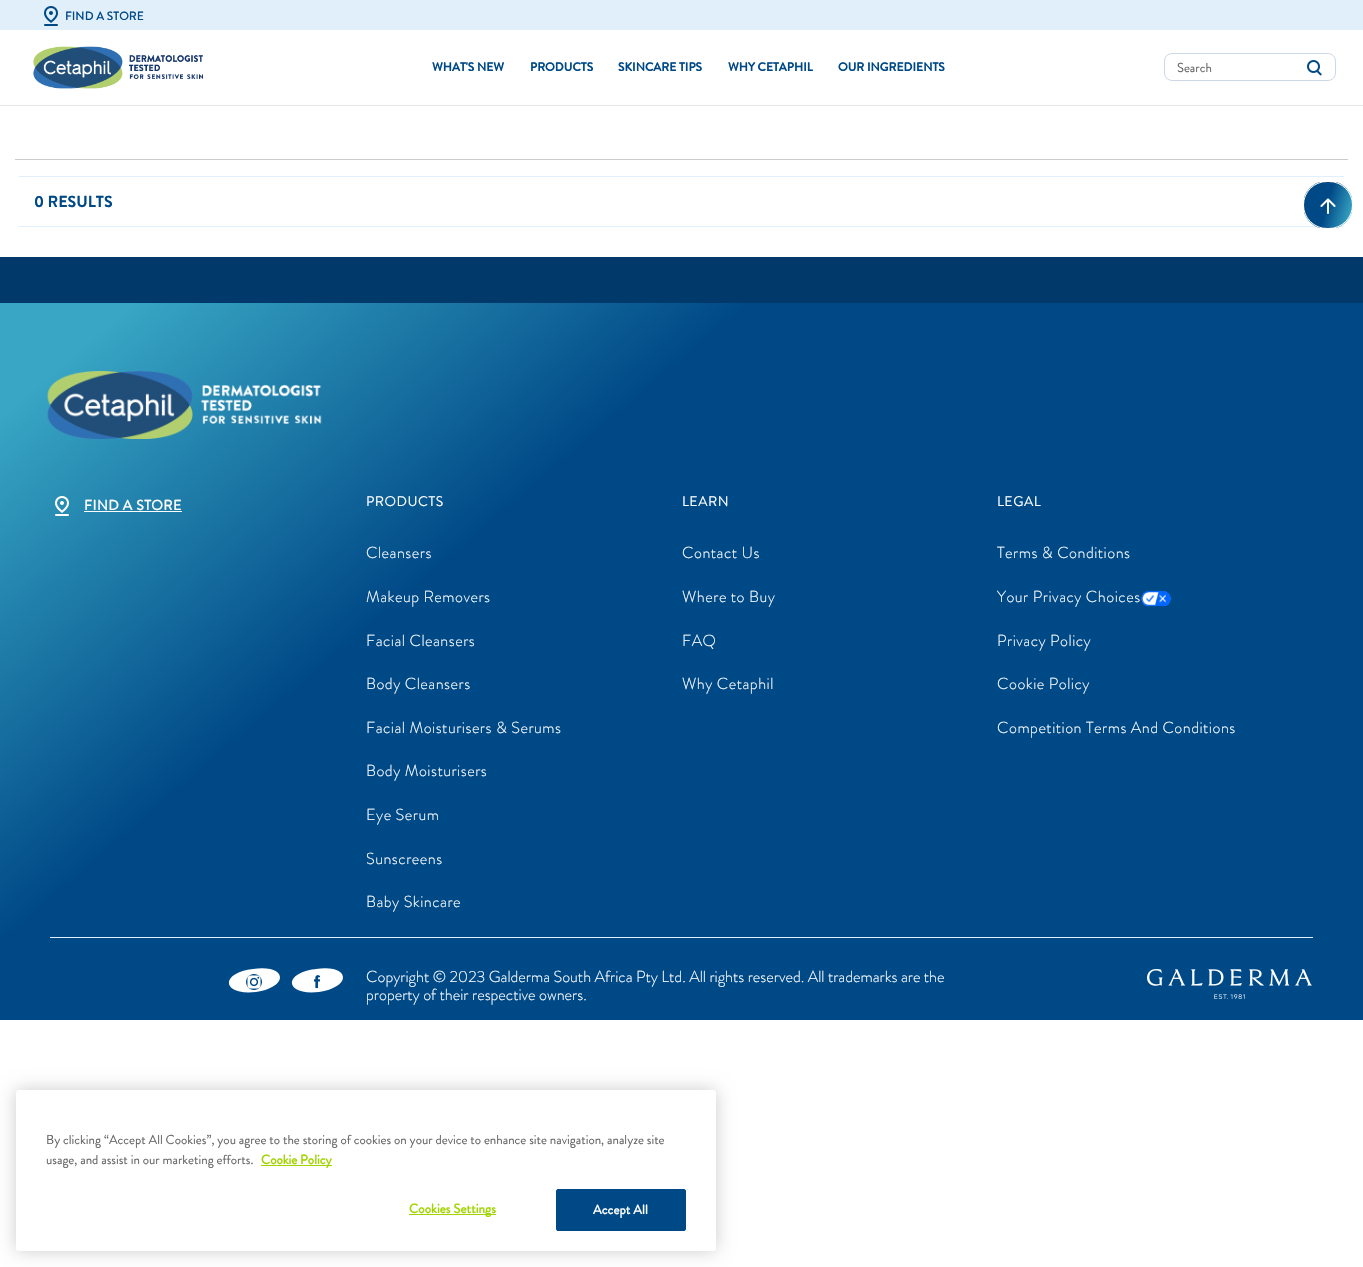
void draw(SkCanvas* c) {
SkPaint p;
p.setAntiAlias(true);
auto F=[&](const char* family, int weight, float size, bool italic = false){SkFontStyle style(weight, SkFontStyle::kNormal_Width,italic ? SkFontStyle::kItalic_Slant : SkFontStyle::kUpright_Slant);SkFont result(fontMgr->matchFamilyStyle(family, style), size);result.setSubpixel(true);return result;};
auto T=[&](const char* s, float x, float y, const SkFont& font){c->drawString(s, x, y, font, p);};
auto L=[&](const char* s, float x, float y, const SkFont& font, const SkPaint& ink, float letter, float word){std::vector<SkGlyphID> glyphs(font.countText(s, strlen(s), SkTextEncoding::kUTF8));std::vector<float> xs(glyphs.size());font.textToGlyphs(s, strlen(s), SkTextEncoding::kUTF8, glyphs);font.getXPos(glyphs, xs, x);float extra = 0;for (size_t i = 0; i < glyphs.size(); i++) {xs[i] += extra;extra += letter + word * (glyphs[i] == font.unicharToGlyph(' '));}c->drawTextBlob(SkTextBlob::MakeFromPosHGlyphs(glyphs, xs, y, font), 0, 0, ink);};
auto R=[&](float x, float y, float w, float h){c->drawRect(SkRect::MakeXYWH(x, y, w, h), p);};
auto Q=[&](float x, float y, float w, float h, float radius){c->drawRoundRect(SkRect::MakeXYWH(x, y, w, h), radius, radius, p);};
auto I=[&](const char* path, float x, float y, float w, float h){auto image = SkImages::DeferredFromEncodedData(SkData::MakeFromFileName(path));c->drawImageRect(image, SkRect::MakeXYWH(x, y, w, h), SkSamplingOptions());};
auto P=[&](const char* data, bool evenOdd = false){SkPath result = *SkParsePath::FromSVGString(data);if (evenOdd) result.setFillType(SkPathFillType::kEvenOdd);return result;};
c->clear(0xffffffff);
p.setColor(0xffe0eff9);
R(0,0,1363,30);
I("1.png",44,6,14,20);
auto f1 = F("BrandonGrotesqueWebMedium",500,12);
p.setColor(0xff004987);
T("FIND A STORE",65,20,f1);
p.setColor(0xffe6e6e6);
R(0,105,1363,1);
I("2.png",33,46,170,43);
auto f2 = F("BrandonGrotesqueWebMedium",700,12);
p.setColor(0xff004987);
T("WHAT'S NEW",432,71,f2);
T("PRODUCTS",530,71,f2);
T("SKINCARE TIPS",618,71,f2);
T("WHY CETAPHIL",728,71,f2);
T("OUR INGREDIENTS",838,71,f2);
p.setStroke(true);
p.setStrokeWidth(1);
p.setColor(0xffcdd8e6);
c->drawRoundRect(SkRect::MakeXYWH(1164.5,53.5,171,27),7.5,7.5,p);
auto f3 = F("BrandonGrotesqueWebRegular",400,13);
p.setStroke(false);
p.setColor(0xff666666);
T("Search",1177,72,f3);
I("3.png",1307,60,15,16);
p.setColor(0xffcccccc);
R(15,159,1333,1);
p.setColor(0xffe0eff9);
R(19,176,1325,1);
R(19,226,1325,1);
auto f4 = F("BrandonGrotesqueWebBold",700,16);
p.setColor(0xff004987);
T("0 RESULTS",34,207,f4);
c->save();
c->clipPath(P("M1327 181h2c13.5 0 24 10.5 24 24c0 13.5-10.5 24-24 24h-2c-13.5 0-24-10.5-24-24c0-13.5 10.5-24 24-24z"),true);
{
const SkColor colors[] = {0xff004987,0xff38a6c4};
const float stops[] = {.48,.94};
const SkPoint ends[] = {{1300,197}, {1356,213}};
p.setShader(SkGradientShader::MakeLinear(ends, colors, stops, 2, SkTileMode::kClamp));
p.setAlpha(255);
}
R(1304,182,48,46);
c->restore();
p.setStroke(true);
p.setShader(nullptr);
p.setColor(0xffffffff);
c->drawRoundRect(SkRect::MakeXYWH(1303.5,181.5,49,47),23.5,23.5,p);
I("4.png",1320,198,16,16);
p.setStroke(false);
p.setColor(0xff00396a);
R(0,257,1363,46);
{
const SkColor colors[] = {0xff004987,0xff38a6c4};
const float stops[] = {.66,.94};
const SkPoint ends[] = {{1146,1205}, {217,118}};
p.setShader(SkGradientShader::MakeLinear(ends, colors, stops, 2, SkTileMode::kClamp));
p.setAlpha(255);
}
R(0,303,1363,717);
I("5.png",47,371,275,68);
I("6.png",55,496,14,20);
auto f5 = F("BrandonGrotesqueWebRegular",700,14);
p.setShader(nullptr);
p.setColor(0xffffffff);
L("FIND A STORE",84,510,f5,p,.5,0);
R(84,511,98,1);
auto f6 = F("BrandonGrotesqueWebRegular",400,14);
L("PRODUCTS",366,506,f6,p,.5,0);
auto f7 = F("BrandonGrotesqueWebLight",300,16);
L("Cleansers",366,558,f7,p,.5,0);
L("Makeup Removers",366,602,f7,p,.5,0);
L("Facial Cleansers",366,646,f7,p,.5,0);
L("Body Cleansers",366,689,f7,p,.5,0);
L("Facial Moisturisers & Serums",366,733,f7,p,.5,0);
L("Body Moisturisers",366,776,f7,p,.5,0);
L("Eye Serum",366,820,f7,p,.5,0);
L("Sunscreens",366,864,f7,p,.5,0);
L("Baby Skincare",366,907,f7,p,.5,0);
L("LEARN",682,506,f6,p,.5,0);
L("Contact Us",682,558,f7,p,.5,0);
L("Where to Buy",682,602,f7,p,.5,0);
L("FAQ",682,646,f7,p,.5,0);
L("Why Cetaphil",682,689,f7,p,.5,0);
L("LEGAL",997,506,f6,p,.5,0);
L("Terms & Conditions",997,558,f7,p,.5,0);
L("Your Privacy Choices",997,602,f7,p,.5,0);
I("7.png",1141,591,30,16);
L("Privacy Policy",997,646,f7,p,.5,0);
L("Cookie Policy",997,689,f7,p,.5,0);
L("Competition Terms And Conditions",997,733,f7,p,.5,0);
p.setColor(0xffe0eff9);
R(50,937,1263,1);
p.setColor(0xffffffff);
c->drawPath(P("M253 969c34-5 37 18 3 23c-34 4-37-19-3-23z"),p);
I("8.png",246,974,16,16);
c->drawPath(P("M316 969c34-5 37 18 3 23c-34 4-37-19-3-23z"),p);
I("9.png",314,975,7,14);
T("Copyright © 2023 Galderma South Africa Pty Ltd. All rights reserved. All trademarks are the",366,982,f7);
T("property of their respective owners.",366,1000,f7);
I("10.png",1147,969,165,30);
p.setColor(0x33000000);
p.setMaskFilter(SkMaskFilter::MakeBlur(kNormal_SkBlurStyle, 9));
c->drawRoundRect(SkRect::MakeXYWH(16,1090,700,161),2.5,2.5,p);
p.setMaskFilter(nullptr);
p.setColor(0xffffffff);
Q(16,1090,700,161,2.5);
p.setColor(0xff666666);
T("By clicking “Accept All Cookies”, you agree to the storing of cookies on your device to enhance site navigation, analyze site",46,1144,f3);
T("usage, and assist in our marketing efforts.",46,1164,f3);
p.setColor(0xffa1d400);
R(261,1165,71,1);
auto f8 = F("BrandonGrotesqueWebRegular",700,13);
T("Cookie Policy",261,1164,f8);
R(409,1214,87,1);
L("Cookies Settings",409,1213,f8,p,.1,0);
p.setColor(0xff004987);
c->drawRoundRect(SkRect::MakeXYWH(556.5,1189.5,129,41),1.5,1.5,p);
p.setStroke(true);
c->drawRoundRect(SkRect::MakeXYWH(556.5,1189.5,129,41),1.5,1.5,p);
p.setStroke(false);
p.setColor(0xffffffff);
L("Accept All",593,1214,f8,p,.1,0);
}
